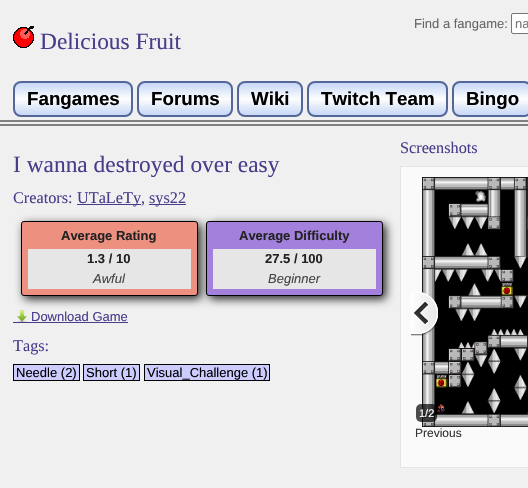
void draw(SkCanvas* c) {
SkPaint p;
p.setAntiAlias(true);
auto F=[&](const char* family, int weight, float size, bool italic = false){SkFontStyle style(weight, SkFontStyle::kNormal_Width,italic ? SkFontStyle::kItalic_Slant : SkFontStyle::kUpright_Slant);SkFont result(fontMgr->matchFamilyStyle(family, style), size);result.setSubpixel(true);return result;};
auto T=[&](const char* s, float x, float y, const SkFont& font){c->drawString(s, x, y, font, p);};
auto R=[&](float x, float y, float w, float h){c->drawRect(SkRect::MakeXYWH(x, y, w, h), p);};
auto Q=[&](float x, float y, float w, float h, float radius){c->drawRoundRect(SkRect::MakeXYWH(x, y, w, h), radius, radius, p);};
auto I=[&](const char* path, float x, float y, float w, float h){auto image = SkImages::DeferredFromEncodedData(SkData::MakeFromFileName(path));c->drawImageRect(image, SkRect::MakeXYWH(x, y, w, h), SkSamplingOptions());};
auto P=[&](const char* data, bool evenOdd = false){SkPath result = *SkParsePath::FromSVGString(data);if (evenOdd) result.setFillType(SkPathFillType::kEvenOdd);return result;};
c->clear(0xfff0f0f0);
p.setColor(0xff808080);
R(0,120,528,2);
R(0,124,528,2);
auto f1 = F("Liberation Sans",400,13);
p.setColor(0xff666666);
T("Find a fangame:",414,28,f1);
p.setColor(0xffffffff);
c->drawRoundRect(SkRect::MakeXYWH(511.5,13.5,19,20),1.5,1.5,p);
p.setStroke(true);
p.setStrokeWidth(1);
p.setColor(0xff767676);
c->drawRoundRect(SkRect::MakeXYWH(511.5,13.5,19,20),1.5,1.5,p);
p.setStroke(false);
p.setColor(0xff757575);
T("na",515,28,f1);
I("1.png",13,26,21,22);
auto f2 = F("Liberation Serif",400,23.4);
p.setColor(0xff483d8b);
T("Delicious Fruit",40,49,f2);
c->save();
c->clipPath(P("M21 81h104c4.5 0 8 3.5 8 8v20c0 4.5-3.5 8-8 8h-104c-4.5 0-8-3.5-8-8v-20c0-4.5 3.5-8 8-8z"),true);
{
const SkColor colors[] = {0xffc6d7f7,0xfffdfdfd,0xffc6d7f7};
const float stops[] = {0,.5,1};
const SkPoint ends[] = {{73,83}, {73,115}};
p.setShader(SkGradientShader::MakeLinear(ends, colors, stops, 3, SkTileMode::kClamp));
p.setAlpha(255);
}
R(13,83,120,32);
c->restore();
p.setStroke(true);
p.setStrokeWidth(2);
p.setShader(nullptr);
p.setColor(0xff556699);
c->drawRoundRect(SkRect::MakeXYWH(14,82,118,34),7,7,p);
auto f3 = F("Liberation Sans",700,18.75);
p.setStroke(false);
p.setColor(0xff000000);
T("Fangames",27,105,f3);
c->save();
c->clipPath(P("M145 81h80c4.5 0 8 3.5 8 8v20c0 4.5-3.5 8-8 8h-80c-4.5 0-8-3.5-8-8v-20c0-4.5 3.5-8 8-8z"),true);
{
const SkColor colors[] = {0xffc6d7f7,0xfffdfdfd,0xffc6d7f7};
const float stops[] = {0,.5,1};
const SkPoint ends[] = {{185,83}, {185,115}};
p.setShader(SkGradientShader::MakeLinear(ends, colors, stops, 3, SkTileMode::kClamp));
p.setAlpha(255);
}
R(137,83,96,32);
c->restore();
p.setStroke(true);
p.setShader(nullptr);
p.setColor(0xff556699);
c->drawRoundRect(SkRect::MakeXYWH(138,82,94,34),7,7,p);
p.setStroke(false);
p.setColor(0xff000000);
T("Forums",151,105,f3);
c->save();
c->clipPath(P("M245 81h50c4.5 0 8 3.5 8 8v20c0 4.5-3.5 8-8 8h-50c-4.5 0-8-3.5-8-8v-20c0-4.5 3.5-8 8-8z"),true);
{
const SkColor colors[] = {0xffc6d7f7,0xfffdfdfd,0xffc6d7f7};
const float stops[] = {0,.5,1};
const SkPoint ends[] = {{270,83}, {270,115}};
p.setShader(SkGradientShader::MakeLinear(ends, colors, stops, 3, SkTileMode::kClamp));
p.setAlpha(255);
}
R(237,83,66,32);
c->restore();
p.setStroke(true);
p.setShader(nullptr);
p.setColor(0xff556699);
c->drawRoundRect(SkRect::MakeXYWH(238,82,64,34),7,7,p);
p.setStroke(false);
p.setColor(0xff000000);
T("Wiki",251,105,f3);
c->save();
c->clipPath(P("M315 81h125c4.5 0 8 3.5 8 8v20c0 4.5-3.5 8-8 8h-125c-4.5 0-8-3.5-8-8v-20c0-4.5 3.5-8 8-8z"),true);
{
const SkColor colors[] = {0xffc6d7f7,0xfffdfdfd,0xffc6d7f7};
const float stops[] = {0,.5,1};
const SkPoint ends[] = {{378,83}, {378,115}};
p.setShader(SkGradientShader::MakeLinear(ends, colors, stops, 3, SkTileMode::kClamp));
p.setAlpha(255);
}
R(307,83,141,32);
c->restore();
p.setStroke(true);
p.setShader(nullptr);
p.setColor(0xff556699);
c->drawRoundRect(SkRect::MakeXYWH(308,82,139,34),7,7,p);
p.setStroke(false);
p.setColor(0xff000000);
T("Twitch Team",321,105,f3);
c->save();
c->clipPath(P("M460 81h64c4.5 0 8 3.5 8 8v20c0 4.5-3.5 8-8 8h-64c-4.5 0-8-3.5-8-8v-20c0-4.5 3.5-8 8-8z"),true);
{
const SkColor colors[] = {0xffc6d7f7,0xfffdfdfd,0xffc6d7f7};
const float stops[] = {0,.5,1};
const SkPoint ends[] = {{492,83}, {492,115}};
p.setShader(SkGradientShader::MakeLinear(ends, colors, stops, 3, SkTileMode::kClamp));
p.setAlpha(255);
}
R(452,83,76,32);
c->restore();
p.setStroke(true);
p.setShader(nullptr);
p.setColor(0xff556699);
c->drawRoundRect(SkRect::MakeXYWH(453,82,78,34),7,7,p);
p.setStroke(false);
p.setColor(0xff000000);
T("Bingo",466,105,f3);
p.setColor(0xff483d8b);
T("I wanna destroyed over easy",13,172,f2);
auto f4 = F("Liberation Serif",400,16.25);
T("Creators:",13,203,f4);
R(77,204,64,1);
T("UTaLeTy,",77,203,f4);
R(149,204,37,1);
T("sys22",149,203,f4);
p.setColor(0xff222222);
p.setMaskFilter(SkMaskFilter::MakeBlur(kNormal_SkBlurStyle, 5));
c->drawRoundRect(SkRect::MakeXYWH(24,224,177,75),3,3,p);
p.setMaskFilter(nullptr);
p.setColor(0xffee9080);
c->drawRoundRect(SkRect::MakeXYWH(21.5,221.5,176,74),2.5,2.5,p);
p.setStroke(true);
p.setStrokeWidth(1);
p.setColor(0xff000000);
c->drawRoundRect(SkRect::MakeXYWH(21.5,221.5,176,74),2.5,2.5,p);
auto f5 = F("Liberation Sans",700,13);
p.setStroke(false);
p.setColor(0xff222222);
T("Average Rating",61,240,f5);
p.setColor(0xffe6e6e6);
R(28,249,163,40);
p.setColor(0xff222222);
T("1.3 / 10",87,263,f5);
auto f6 = F("Liberation Sans",400,13,true);
p.setColor(0xff444444);
T("Awful",93,283,f6);
p.setColor(0xff222222);
p.setMaskFilter(SkMaskFilter::MakeBlur(kNormal_SkBlurStyle, 5));
c->drawRoundRect(SkRect::MakeXYWH(209,224,177,75),3,3,p);
p.setMaskFilter(nullptr);
p.setColor(0xffa380db);
c->drawRoundRect(SkRect::MakeXYWH(206.5,221.5,176,74),2.5,2.5,p);
p.setStroke(true);
p.setColor(0xff000000);
c->drawRoundRect(SkRect::MakeXYWH(206.5,221.5,176,74),2.5,2.5,p);
p.setStroke(false);
p.setColor(0xff222222);
T("Average Difficulty",239,240,f5);
p.setColor(0xffe6e6e6);
R(213,249,163,40);
p.setColor(0xff222222);
T("27.5 / 100",265,263,f5);
p.setColor(0xff444444);
T("Beginner",268,283,f6);
I("2.png",17,310,10,12);
p.setColor(0xff483d8b);
T("Download Game",31,321,f1);
R(13,322,115,1);
T("Tags:",13,351,f4);
p.setColor(0xffccccff);
c->drawRect(SkRect::MakeXYWH(13.5,364.5,66,16),p);
p.setStroke(true);
p.setColor(0xff000000);
c->drawRect(SkRect::MakeXYWH(13.5,364.5,66,16),p);
p.setStroke(false);
T("Needle (2)",16,377,f1);
p.setColor(0xffccccff);
c->drawRect(SkRect::MakeXYWH(83.5,364.5,56,16),p);
p.setStroke(true);
p.setColor(0xff000000);
c->drawRect(SkRect::MakeXYWH(83.5,364.5,56,16),p);
p.setStroke(false);
T("Short (1)",86,377,f1);
p.setColor(0xffccccff);
c->drawRect(SkRect::MakeXYWH(144.5,364.5,125,16),p);
p.setStroke(true);
p.setColor(0xff000000);
c->drawRect(SkRect::MakeXYWH(144.5,364.5,125,16),p);
p.setStroke(false);
T("Visual_Challenge (1)",147,377,f1);
p.setColor(0xff483d8b);
T("Screenshots",400,153,f4);
p.setColor(0xfffafafa);
c->drawRect(SkRect::MakeXYWH(400.5,166.5,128,301),p);
p.setStroke(true);
p.setColor(0xffe5e5e5);
c->drawRect(SkRect::MakeXYWH(400.5,166.5,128,301),p);
I("3.png",422,177,106,250);
I("4.png",411,292,27,44);
p.setStroke(false);
p.setColor(0xb3000000);
Q(416,404,21,18,5);
auto f7 = F("Liberation Sans",400,11);
p.setColor(0xffffffff);
T("1/2",419,417,f7);
auto f8 = F("Liberation Sans",400,12);
p.setColor(0xff333333);
T("Previous",415,437,f8);
}
